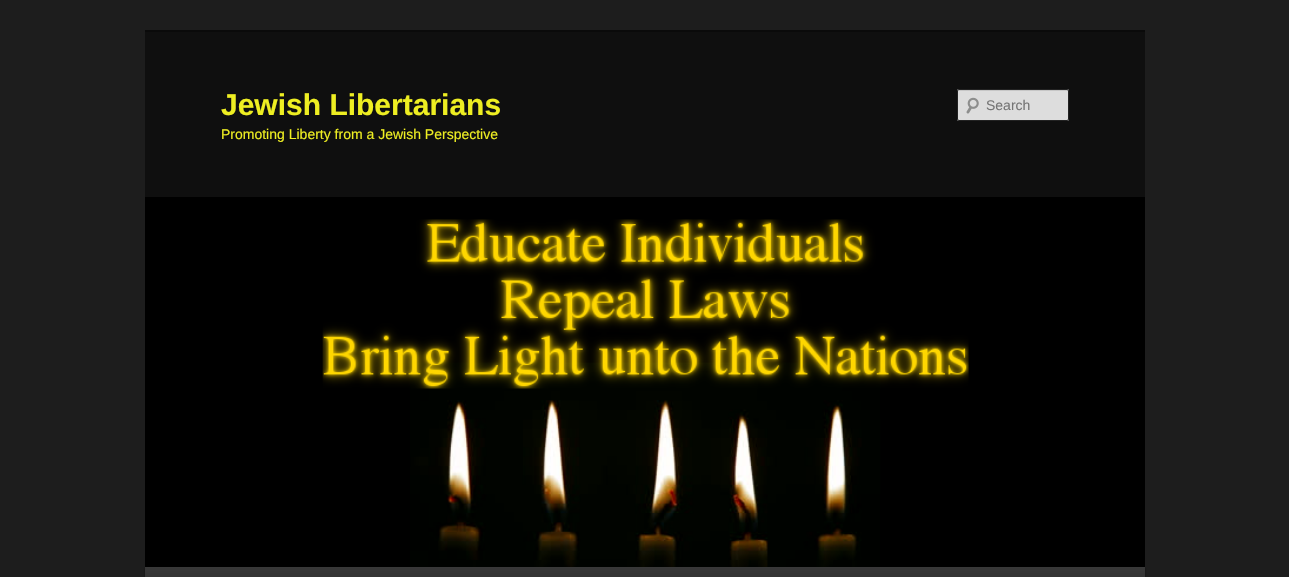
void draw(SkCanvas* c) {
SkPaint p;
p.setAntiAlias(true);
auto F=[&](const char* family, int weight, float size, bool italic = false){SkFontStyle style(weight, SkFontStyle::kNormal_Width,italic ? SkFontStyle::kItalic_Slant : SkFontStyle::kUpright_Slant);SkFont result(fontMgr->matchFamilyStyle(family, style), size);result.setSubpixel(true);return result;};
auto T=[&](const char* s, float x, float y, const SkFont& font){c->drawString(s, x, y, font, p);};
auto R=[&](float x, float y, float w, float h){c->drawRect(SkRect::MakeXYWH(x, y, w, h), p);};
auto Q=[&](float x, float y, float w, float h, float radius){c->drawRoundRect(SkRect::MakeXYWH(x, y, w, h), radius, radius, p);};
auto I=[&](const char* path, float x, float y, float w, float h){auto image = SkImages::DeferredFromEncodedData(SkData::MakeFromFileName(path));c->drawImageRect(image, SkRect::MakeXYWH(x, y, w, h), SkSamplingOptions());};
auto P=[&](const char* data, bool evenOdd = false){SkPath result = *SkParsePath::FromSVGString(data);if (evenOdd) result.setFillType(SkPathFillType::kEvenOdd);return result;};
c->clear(0xff1d1d1d);
p.setColor(0xff0f0f0f);
R(145,32,1000,165);
p.setColor(0xff0a0a0a);
R(145,30,1000,2);
auto f1 = F("Liberation Sans",700,30);
p.setColor(0xffeeee22);
T("Jewish Libertarians",221,115,f1);
auto f2 = F("Liberation Sans",400,14);
T("Promoting Liberty from a Jewish Perspective",221,139,f2);
p.setColor(0xffdddddd);
Q(957,89,112,32,2);
I("1.png",966,97,13,17);
p.setColor(0x1a000000);
c->drawPath(P("M959 91h109v1c0-7-15-2-19-2h-90l-1 2c0-1 0-1 1-1z"),p);
p.setStroke(true);
p.setStrokeWidth(1);
p.setColor(0xff222222);
c->drawRoundRect(SkRect::MakeXYWH(957.5,89.5,111,31),1.5,1.5,p);
p.setStroke(false);
p.setColor(0xff757575);
T("Search",986,110,f2);
p.setColor(0x66000000);
p.setMaskFilter(SkMaskFilter::MakeBlur(kNormal_SkBlurStyle, 1));
c->drawRect(SkRect::MakeXYWH(145,568,1000,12),p);
p.setMaskFilter(nullptr);
I("2.png",145,197,1000,370);
{
const SkColor colors[] = {0xff383838,0xff272727};
const float stops[] = {0,1};
const SkPoint ends[] = {{645,567}, {645,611}};
p.setShader(SkGradientShader::MakeLinear(ends, colors, stops, 2, SkTileMode::kClamp));
p.setAlpha(255);
}
R(145,567,1000,10);
}
